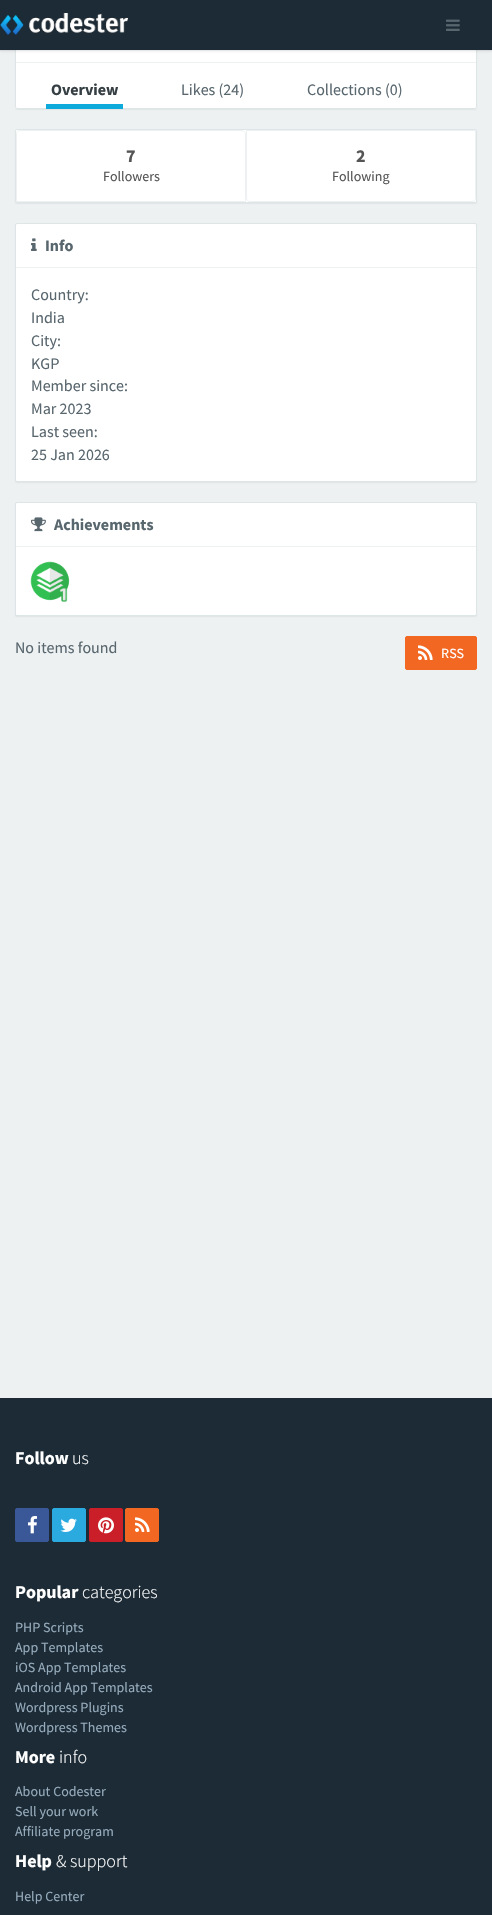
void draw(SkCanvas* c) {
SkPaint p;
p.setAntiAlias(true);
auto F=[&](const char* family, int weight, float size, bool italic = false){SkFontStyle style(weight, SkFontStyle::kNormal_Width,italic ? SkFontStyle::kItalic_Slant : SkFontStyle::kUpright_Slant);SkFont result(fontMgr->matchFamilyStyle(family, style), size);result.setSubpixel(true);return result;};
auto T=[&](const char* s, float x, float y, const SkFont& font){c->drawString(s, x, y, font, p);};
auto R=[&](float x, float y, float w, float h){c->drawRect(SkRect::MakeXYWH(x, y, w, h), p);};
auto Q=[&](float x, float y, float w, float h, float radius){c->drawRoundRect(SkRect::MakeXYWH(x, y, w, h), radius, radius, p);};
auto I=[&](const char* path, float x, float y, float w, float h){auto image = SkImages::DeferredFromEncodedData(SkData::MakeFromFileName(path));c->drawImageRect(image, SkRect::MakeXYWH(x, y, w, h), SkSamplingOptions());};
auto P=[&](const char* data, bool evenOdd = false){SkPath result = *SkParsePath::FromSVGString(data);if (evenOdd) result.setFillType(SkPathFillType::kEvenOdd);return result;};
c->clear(0xffedf1f2);
p.setColor(0x0d000000);
p.setMaskFilter(SkMaskFilter::MakeBlur(kNormal_SkBlurStyle, .5));
c->drawRoundRect(SkRect::MakeXYWH(15,-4,462,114),2,2,p);
p.setMaskFilter(nullptr);
p.setColor(0xffffffff);
Q(15,-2,462,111,2);
p.setStroke(true);
p.setStrokeWidth(1);
p.setColor(0xffdee5e7);
c->drawPath(P("M476-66l.5 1v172l-.5 1l-1 .5h-458l-1-.5l-.5-1v-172l.5-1"),p);
p.setStroke(false);
p.setColor(0x0d000000);
R(0,50,492,1);
p.setMaskFilter(SkMaskFilter::MakeBlur(kNormal_SkBlurStyle, 1));
c->drawRect(SkRect::MakeXYWH(0,2,492,50),p);
p.setMaskFilter(nullptr);
p.setColor(0xff1c2b36);
R(0,0,492,50);
I("1.png",0,13,128,22);
I("2.png",446,19,14,12);
p.setColor(0xffedf1f2);
R(16,62,460,1);
auto f1 = F("Source Sans Pro",700,16);
p.setColor(0xff363f44);
T("Overview",51,95,f1);
p.setColor(0xff0faadc);
R(46,104,77,5);
auto f2 = F("Source Sans Pro",400,16);
p.setColor(0xff58666e);
T("Likes (24)",181,95,f2);
T("Collections (0)",307,95,f2);
p.setColor(0x0d000000);
p.setMaskFilter(SkMaskFilter::MakeBlur(kNormal_SkBlurStyle, .5));
c->drawRoundRect(SkRect::MakeXYWH(15,130,462,74),2,2,p);
p.setMaskFilter(nullptr);
p.setColor(0xffffffff);
c->drawRoundRect(SkRect::MakeXYWH(15.5,129.5,461,73),1.5,1.5,p);
p.setStroke(true);
p.setColor(0xffdee5e7);
c->drawRoundRect(SkRect::MakeXYWH(15.5,129.5,461,73),1.5,1.5,p);
p.setStroke(false);
p.setColor(0xffffffff);
c->drawPath(P("M20 130.5h222c2 0 3.5 1.5 3.5 3.5v67.5h-229v-67.5c0-2 1.5-3.5 3.5-3.5z"),p);
p.setStroke(true);
p.setColor(0xffedf1f2);
c->drawPath(P("M20 130.5h222c2 0 3.5 1.5 3.5 3.5v67.5h-229v-67.5c0-2 1.5-3.5 3.5-3.5z"),p);
auto f3 = F("Source Sans Pro",700,18);
p.setStroke(false);
p.setColor(0xff555555);
T("7",126,162,f3);
auto f4 = F("Source Sans Pro",400,14);
T("Followers",103,181,f4);
p.setColor(0xffffffff);
c->drawPath(P("M246.5 130.5h229v67.5c0 2-1.5 3.5-3.5 3.5h-222c-2 0-3.5-1.5-3.5-3.5z"),p);
p.setStroke(true);
p.setColor(0xffedf1f2);
c->drawPath(P("M246.5 130.5h229v67.5c0 2-1.5 3.5-3.5 3.5h-222c-2 0-3.5-1.5-3.5-3.5z"),p);
p.setStroke(false);
p.setColor(0xff555555);
T("2",356,162,f3);
T("Following",332,181,f4);
p.setColor(0x0d000000);
p.setMaskFilter(SkMaskFilter::MakeBlur(kNormal_SkBlurStyle, .5));
c->drawRoundRect(SkRect::MakeXYWH(15,224,462,259),2,2,p);
p.setMaskFilter(nullptr);
p.setColor(0xffffffff);
c->drawRoundRect(SkRect::MakeXYWH(15.5,223.5,461,258),1.5,1.5,p);
p.setStroke(true);
p.setColor(0xffdee5e7);
c->drawRoundRect(SkRect::MakeXYWH(15.5,223.5,461,258),1.5,1.5,p);
p.setStroke(false);
p.setColor(0xffedf1f2);
R(16,267,460,1);
I("3.png",31,238,6,13);
p.setColor(0xff58666e);
T("Info",45,251,f1);
T("Country:",31,300,f2);
T("India",31,323,f2);
T("City:",31,346,f2);
T("KGP",31,369,f2);
T("Member since:",31,391,f2);
T("Mar 2023",31,414,f2);
T("Last seen:",31,437,f2);
T("25 Jan 2026",31,460,f2);
p.setColor(0x0d000000);
p.setMaskFilter(SkMaskFilter::MakeBlur(kNormal_SkBlurStyle, .5));
c->drawRoundRect(SkRect::MakeXYWH(15,503,462,114),2,2,p);
p.setMaskFilter(nullptr);
p.setColor(0xffffffff);
c->drawRoundRect(SkRect::MakeXYWH(15.5,502.5,461,113),1.5,1.5,p);
p.setStroke(true);
p.setColor(0xffdee5e7);
c->drawRoundRect(SkRect::MakeXYWH(15.5,502.5,461,113),1.5,1.5,p);
p.setStroke(false);
p.setColor(0xffedf1f2);
R(16,546,460,1);
I("4.png",31,517,15,15);
p.setColor(0xff58666e);
T("Achievements",54,530,f1);
I("5.png",30,561,40,41);
p.setColor(0xfff26722);
c->drawRoundRect(SkRect::MakeXYWH(405.5,636.5,71,33),1.5,1.5,p);
p.setStroke(true);
c->drawRoundRect(SkRect::MakeXYWH(405.5,636.5,71,33),1.5,1.5,p);
I("6.png",418,645,15,15);
p.setStroke(false);
p.setColor(0xffffffff);
T("RSS",441,658,f4);
p.setColor(0xff58666e);
T("No items found",15,653,f2);
p.setColor(0xff1c2b36);
R(0,1398,492,517);
p.setColor(0xffffffff);
T("Follow",15,1464,f3);
auto f5 = F("Source Sans Pro",300,18);
T("us",72,1464,f5);
p.setColor(0xff3a5898);
c->drawRoundRect(SkRect::MakeXYWH(15.5,1508.5,33,33),1.5,1.5,p);
p.setStroke(true);
c->drawRoundRect(SkRect::MakeXYWH(15.5,1508.5,33,33),1.5,1.5,p);
I("7.png",28,1516,9,18);
p.setStroke(false);
p.setColor(0xff2baadf);
c->drawRoundRect(SkRect::MakeXYWH(52.5,1508.5,33,33),1.5,1.5,p);
p.setStroke(true);
c->drawRoundRect(SkRect::MakeXYWH(52.5,1508.5,33,33),1.5,1.5,p);
I("8.png",60,1518,17,14);
p.setStroke(false);
p.setColor(0xffca1f28);
c->drawRoundRect(SkRect::MakeXYWH(89.5,1508.5,33,33),1.5,1.5,p);
p.setStroke(true);
c->drawRoundRect(SkRect::MakeXYWH(89.5,1508.5,33,33),1.5,1.5,p);
I("9.png",98,1517,16,17);
p.setStroke(false);
p.setColor(0xfff26722);
c->drawRoundRect(SkRect::MakeXYWH(125.5,1508.5,33,33),1.5,1.5,p);
p.setStroke(true);
c->drawRoundRect(SkRect::MakeXYWH(125.5,1508.5,33,33),1.5,1.5,p);
I("6.png",135,1517,15,15);
p.setStroke(false);
p.setColor(0xffffffff);
T("Popular",15,1598,f3);
T("categories",82,1598,f5);
p.setColor(0xff96abbb);
T("PHP Scripts",15,1632,f4);
T("App Templates",15,1652,f4);
T("iOS App Templates",15,1672,f4);
T("Android App Templates",15,1692,f4);
T("Wordpress Plugins",15,1712,f4);
T("Wordpress Themes",15,1732,f4);
p.setColor(0xffffffff);
T("More",15,1763,f3);
T("info",59,1763,f5);
p.setColor(0xff96abbb);
T("About Codester",15,1796,f4);
T("Sell your work",15,1816,f4);
T("Affiliate program",15,1836,f4);
p.setColor(0xffffffff);
T("Help",15,1867,f3);
T("& support",56,1867,f5);
p.setColor(0xff96abbb);
T("Help Center",15,1901,f4);
}
